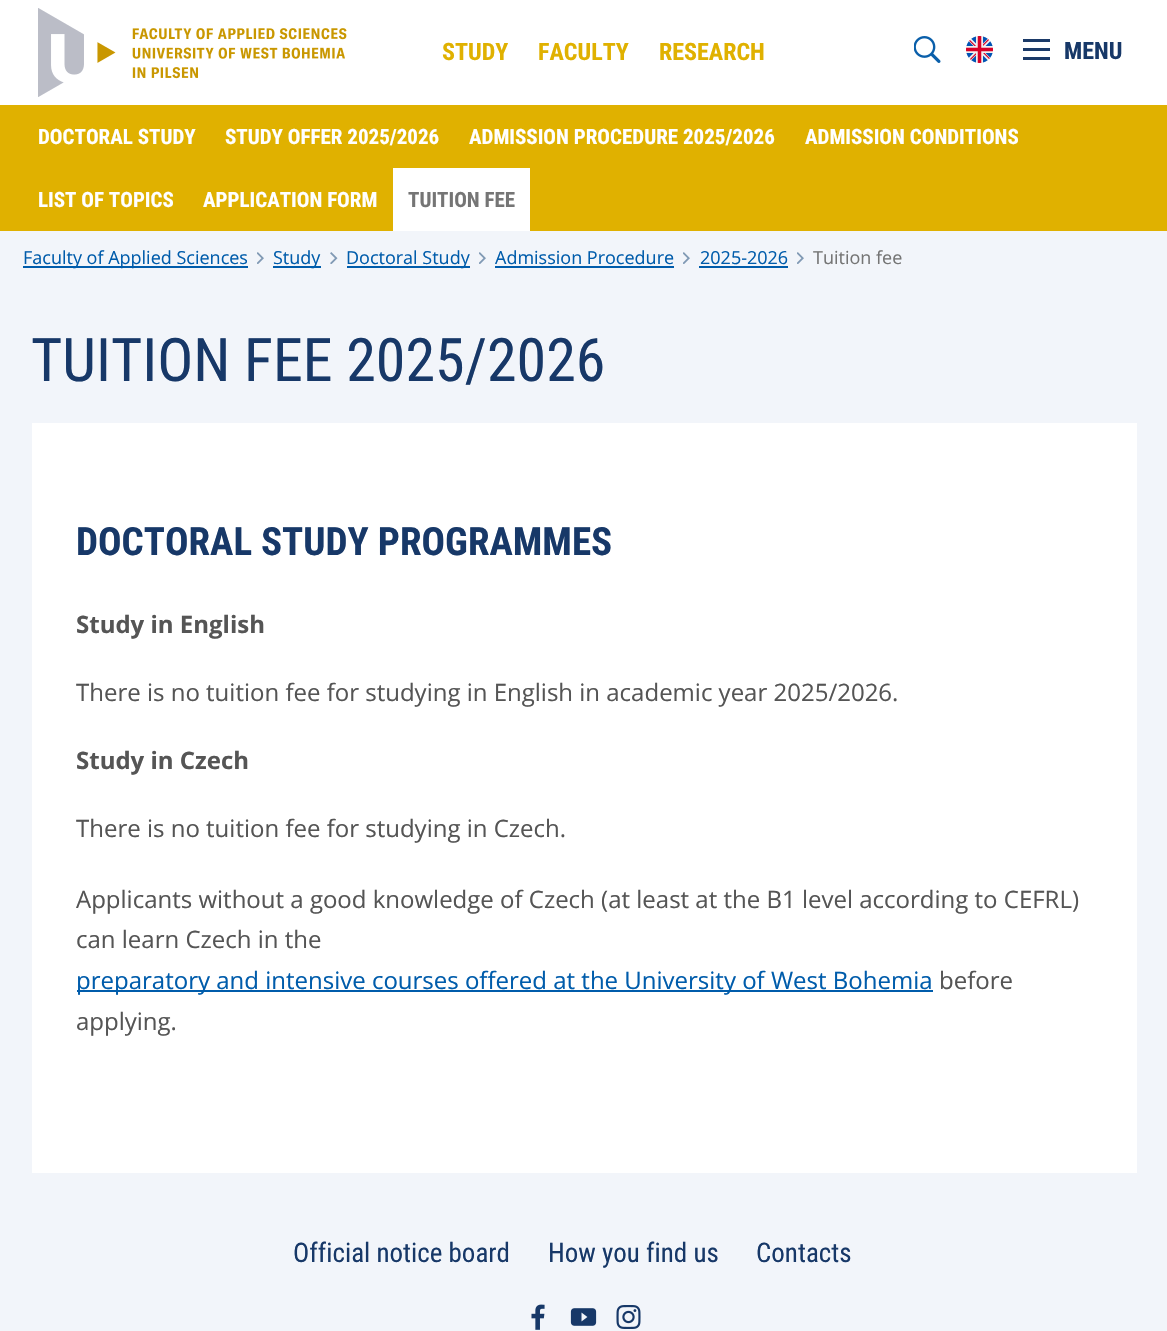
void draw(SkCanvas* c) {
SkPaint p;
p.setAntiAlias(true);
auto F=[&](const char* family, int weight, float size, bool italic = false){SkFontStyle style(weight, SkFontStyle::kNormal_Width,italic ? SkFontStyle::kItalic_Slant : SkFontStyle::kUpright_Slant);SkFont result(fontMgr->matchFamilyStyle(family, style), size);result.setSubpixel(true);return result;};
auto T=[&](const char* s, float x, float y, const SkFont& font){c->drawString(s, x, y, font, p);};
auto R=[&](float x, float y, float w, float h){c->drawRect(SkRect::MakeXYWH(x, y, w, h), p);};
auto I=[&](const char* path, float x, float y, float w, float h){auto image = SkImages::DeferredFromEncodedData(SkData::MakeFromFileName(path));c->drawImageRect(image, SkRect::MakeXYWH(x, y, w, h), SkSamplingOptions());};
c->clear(0xfff2f5fa);
p.setColor(0xffffffff);
R(0,0,1167,105);
I("1.png",38,8,309,89);
auto f1 = F("Roboto Condensed",700,24);
p.setColor(0xffe0b100);
T("STUDY",442,60,f1);
T("FACULTY",538,60,f1);
T("RESEARCH",659,60,f1);
I("2.png",914,36,27,27);
I("3.png",966,36,27,27);
p.setColor(0xff173868);
T("MENU",1064,59,f1);
p.setColor(0xff1b3a68);
R(1023,39,27,3);
R(1023,48,27,3);
R(1023,57,27,3);
p.setColor(0xffe0b100);
R(0,105,1167,126);
auto f2 = F("Roboto Condensed",700,21);
p.setColor(0xffffffff);
T("DOCTORAL STUDY",38,144,f2);
T("STUDY OFFER 2025/2026",225,144,f2);
T("ADMISSION PROCEDURE 2025/2026",469,144,f2);
T("ADMISSION CONDITIONS",805,144,f2);
T("LIST OF TOPICS",38,207,f2);
T("APPLICATION FORM",203,207,f2);
R(393,168,137,63);
p.setColor(0xff757575);
T("TUITION FEE",408,207,f2);
I("4.png",257,252,7,12);
p.setColor(0xff005cab);
R(23,266,225,2);
auto f3 = F("Open Sans",400,18);
T("Faculty of Applied Sciences",23,264,f3);
I("5.png",330,252,8,12);
R(273,266,48,2);
T("Study",273,264,f3);
I("4.png",479,252,7,12);
R(347,266,123,2);
T("Doctoral Study",346,264,f3);
I("4.png",683,252,7,12);
T("Admission Procedure",495,264,f3);
R(495,266,179,2);
I("4.png",797,252,7,12);
T("2025-2026",700,264,f3);
R(699,266,89,2);
p.setColor(0xff757575);
T("Tuition fee",813,264,f3);
auto f4 = F("Roboto Condensed",400,60);
p.setColor(0xff173868);
T("TUITION FEE 2025/2026",31,381,f4);
p.setColor(0xffffffff);
R(32,423,1105,750);
auto f5 = F("Roboto Condensed",700,39);
p.setColor(0xff173868);
T("DOCTORAL STUDY PROGRAMMES",76,555,f5);
auto f6 = F("Open Sans",700,24);
p.setColor(0xff555555);
T("Study in English",76,633,f6);
auto f7 = F("Open Sans",400,24);
T("There is no tuition fee for studying in English in academic year 2025/2026.",76,701,f7);
T("Study in Czech",76,769,f6);
T("There is no tuition fee for studying in Czech.",76,837,f7);
T("Applicants without a good knowledge of Czech (at least at the B1 level according to CEFRL)",76,908,f7);
T("can learn Czech in the",76,948,f7);
p.setColor(0xff005cab);
R(77,990,856,2);
T("preparatory and intensive courses offered at the University of West Bohemia",76,989,f7);
p.setColor(0xff555555);
T("before",939,989,f7);
T("applying.",76,1030,f7);
auto f8 = F("Roboto Condensed",400,27);
p.setColor(0xff173868);
T("Official notice board",293,1262,f8);
T("How you find us",548,1262,f8);
T("Contacts",756,1262,f8);
I("6.png",531,1304,14,26);
I("7.png",570,1308,27,18);
I("8.png",616,1305,25,24);
}
